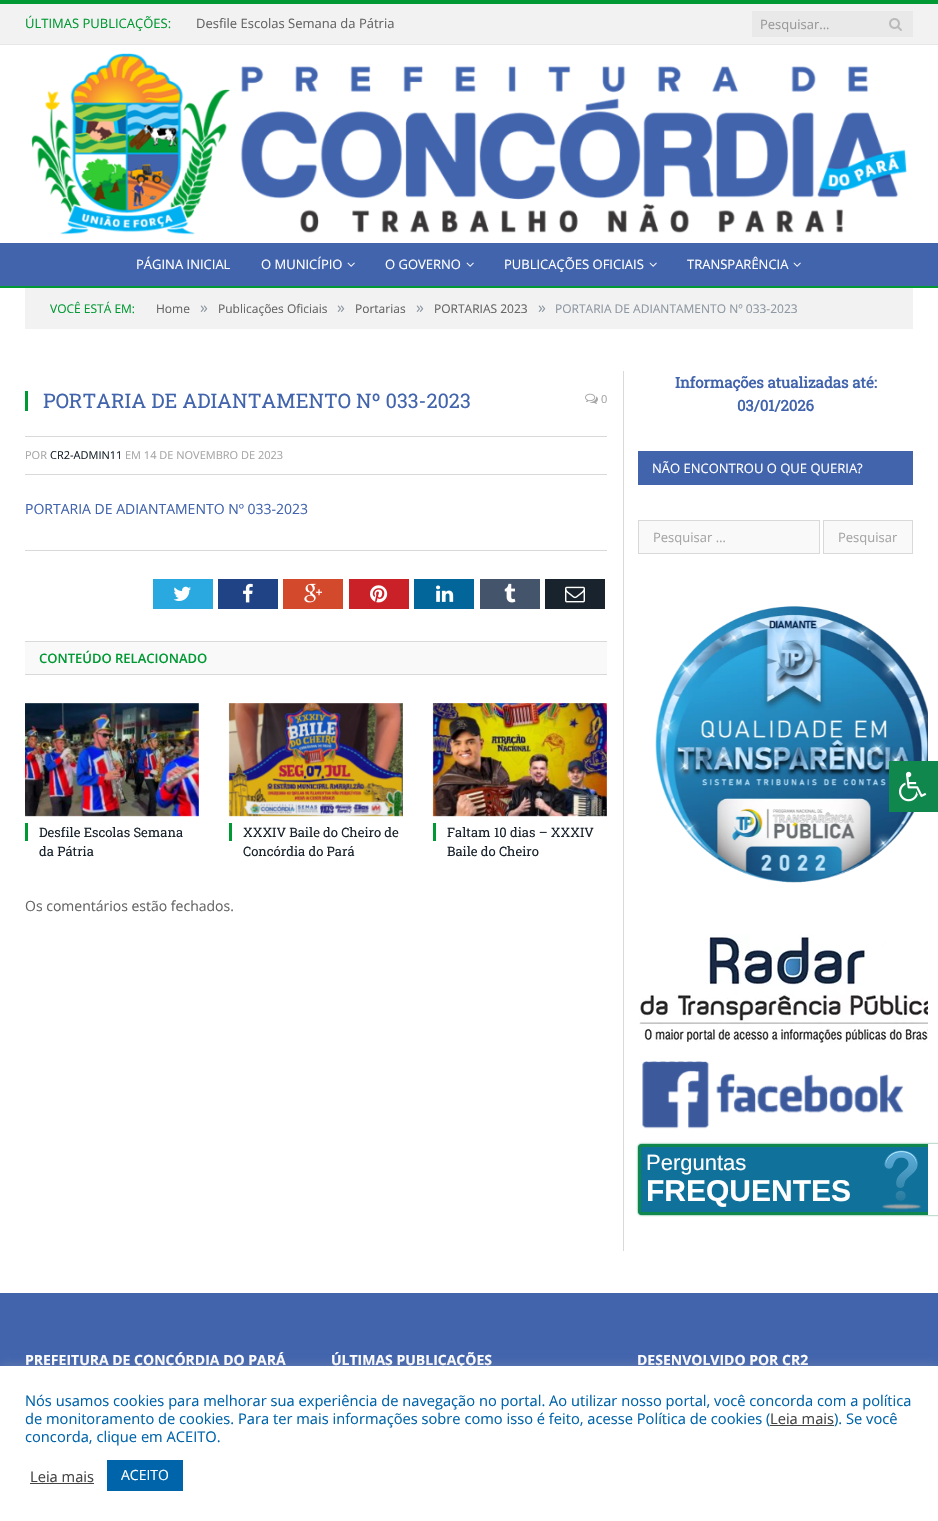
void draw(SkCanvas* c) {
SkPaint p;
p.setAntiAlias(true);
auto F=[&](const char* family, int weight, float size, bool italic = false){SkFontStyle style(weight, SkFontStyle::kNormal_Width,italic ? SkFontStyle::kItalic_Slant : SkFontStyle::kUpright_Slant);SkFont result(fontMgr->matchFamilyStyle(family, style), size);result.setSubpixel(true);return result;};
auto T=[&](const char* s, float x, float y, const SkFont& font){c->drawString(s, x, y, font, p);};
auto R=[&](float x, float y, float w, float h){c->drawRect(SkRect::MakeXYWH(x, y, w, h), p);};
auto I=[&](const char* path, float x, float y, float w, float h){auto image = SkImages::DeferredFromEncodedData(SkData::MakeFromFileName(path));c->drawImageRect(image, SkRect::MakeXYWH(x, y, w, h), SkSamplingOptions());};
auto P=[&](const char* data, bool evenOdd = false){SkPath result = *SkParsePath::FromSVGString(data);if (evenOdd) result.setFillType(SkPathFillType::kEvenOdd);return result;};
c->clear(0xffffffff);
p.setColor(0xfff2f2f2);
R(0,4,938,40);
p.setColor(0xff009933);
R(0,0,938,4);
p.setColor(0xffe7e7e7);
R(0,44,938,1);
auto f1 = F("Open Sans",400,13);
p.setColor(0xff009933);
T("ÚLTIMAS PUBLICAÇÕES:",25,28,f1);
p.setColor(0xff656565);
T("Desfile Escolas Semana da Pátria",196,28,f1);
p.setColor(0xffe9e9e9);
R(752,11,161,26);
p.setColor(0xff999999);
T("Pesquisar...",760,29,f1);
I("1.png",889,18,13,13);
I("2.png",31,53,876,182);
p.setColor(0xff4164ad);
R(0,243,938,43);
p.setColor(0xff009933);
R(0,286,938,2);
p.setColor(0xffffffff);
T("PÁGINA INICIAL",136,269,f1);
T("O MUNICÍPIO",261,269,f1);
I("3.png",347,262,8,5);
T("O GOVERNO",385,269,f1);
I("3.png",466,262,8,5);
T("PUBLICAÇÕES OFICIAIS",504,269,f1);
I("3.png",649,262,8,5);
T("TRANSPARÊNCIA",687,269,f1);
I("3.png",793,262,8,5);
p.setColor(0xfff2f2f2);
R(25,288,888,41);
auto f2 = F("Open Sans",400,12);
p.setColor(0xff009933);
T("VOCÊ ESTÁ EM:",50,313,f2);
p.setColor(0xff656565);
T("Home",156,313,f2);
auto f3 = F("Open Sans",400,16);
p.setColor(0xff8d97a1);
T("»",200,313,f3);
p.setColor(0xff656565);
T("Publicações Oficiais",218,313,f2);
p.setColor(0xff8d97a1);
T("»",337,313,f3);
p.setColor(0xff656565);
T("Portarias",355,313,f2);
p.setColor(0xff8d97a1);
T("»",416,313,f3);
p.setColor(0xff656565);
T("PORTARIAS 2023",434,313,f2);
p.setColor(0xff8d97a1);
T("»",538,313,f3);
T("PORTARIA DE ADIANTAMENTO Nº 033-2023",555,313,f2);
p.setColor(0xff009933);
R(25,391,3,20);
auto f4 = F("Roboto Slab",400,20);
p.setColor(0xff4164ad);
T("PORTARIA DE ADIANTAMENTO Nº 033-2023",43,408,f4);
I("4.png",585,393,13,11);
auto f5 = F("Open Sans",400,11);
p.setColor(0xffa6a6a6);
T("0",601,403,f5);
p.setColor(0xffd9d9d9);
R(25,436,582,1);
R(25,474,582,1);
p.setColor(0xffa6a6a6);
T("POR",25,459,f5);
p.setColor(0xff19232d);
T("CR2-ADMIN11",50,459,f5);
p.setColor(0xffa6a6a6);
T("EM 14 DE NOVEMBRO DE 2023",125,459,f5);
auto f6 = F("Open Sans",400,14);
p.setColor(0xff4164ad);
T("PORTARIA DE ADIANTAMENTO Nº 033-2023",25,514,f6);
p.setColor(0xffd9d9d9);
R(25,550,582,1);
p.setColor(0xff2aa9e0);
R(153,579,60,30);
I("5.png",173,586,18,15);
p.setColor(0xff204385);
R(218,579,60,30);
I("6.png",243,583,10,20);
p.setColor(0xffd3492c);
R(283,579,60,30);
I("7.png",304,583,18,20);
p.setColor(0xffca2128);
R(349,579,60,30);
I("8.png",370,585,18,18);
p.setColor(0xff02669a);
R(414,579,60,30);
I("9.png",436,585,18,17);
p.setColor(0xff44546b);
R(480,579,60,30);
I("10.png",504,583,12,20);
p.setColor(0xff19232d);
R(545,579,60,30);
I("11.png",565,586,20,17);
p.setColor(0xfff9f9f9);
R(25,642,582,32);
p.setColor(0xffd9d9d9);
R(25,641,582,1);
R(25,674,582,1);
auto f7 = F("Open Sans",600,13);
p.setColor(0xff009933);
T("CONTEÚDO RELACIONADO",39,663,f7);
I("12.png",25,703,174,114);
R(25,823,3,18);
auto f8 = F("Roboto Slab",400,13);
p.setColor(0xff19232d);
T("Desfile Escolas Semana",39,837,f8);
T("da Pátria",39,856,f8);
I("13.png",228,703,175,114);
p.setColor(0xff009933);
R(229,823,3,18);
p.setColor(0xff19232d);
T("XXXIV Baile do Cheiro de",243,837,f8);
T("Concórdia do Pará",243,856,f8);
I("14.png",432,703,175,114);
p.setColor(0xff009933);
R(433,823,3,18);
p.setColor(0xff19232d);
T("Faltam 10 dias – XXXIV",447,837,f8);
T("Baile do Cheiro",447,856,f8);
p.setColor(0xff656565);
T("Os comentários estão fechados.",25,911,f6);
p.setColor(0xffd9d9d9);
R(623,371,1,880);
auto f9 = F("Roboto Slab",700,15);
p.setColor(0xff4164ad);
T("Informações atualizadas até:",675,388,f9);
T("03/01/2026",737,411,f9);
R(638,451,275,34);
p.setColor(0xffffffff);
T("NÃO ENCONTROU O QUE QUERIA?",652,473,f1);
p.setColor(0xfff9f9f9);
c->drawRect(SkRect::MakeXYWH(638.5,520.5,181,33),p);
p.setStroke(true);
p.setStrokeWidth(1);
p.setColor(0xffd9d9d9);
c->drawRect(SkRect::MakeXYWH(638.5,520.5,181,33),p);
p.setStroke(false);
p.setColor(0xffa6a6a6);
T("Pesquisar …",653,542,f1);
p.setColor(0xfff9f9f9);
c->drawRect(SkRect::MakeXYWH(823.5,520.5,89,33),p);
p.setStroke(true);
p.setColor(0xffd9d9d9);
c->drawRect(SkRect::MakeXYWH(823.5,520.5,89,33),p);
p.setStroke(false);
p.setColor(0xffa6a6a6);
T("Pesquisar",838,542,f1);
I("15.png",655,606,273,277);
I("16.png",639,934,289,109);
I("17.png",642,1061,262,68);
c->save();
c->clipPath(P("M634 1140h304v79h-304zm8 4h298c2 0 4 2 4 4v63c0 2-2 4-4 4h-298c-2 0-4-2-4-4v-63c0-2 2-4 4-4z",true),true);
p.setColor(0xff10874d);
p.setMaskFilter(SkMaskFilter::MakeBlur(kNormal_SkBlurStyle, 1));
c->drawRoundRect(SkRect::MakeXYWH(638,1144,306,71),4,4,p);
p.setMaskFilter(nullptr);
c->restore();
p.setColor(0xff10719a);
c->drawPath(P("M642 1144h286v71h-286c-2 0-4-2-4-4v-63c0-2 2-4 4-4z"),p);
c->save();
c->clipRect(SkRect::MakeXYWH(10,371,918,880));
p.setStroke(true);
p.setStrokeWidth(3);
p.setColor(0xff10874d);
c->drawRoundRect(SkRect::MakeXYWH(639.5,1145.5,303,68),2.5,2.5,p);
c->restore();
auto f10 = F("Liberation Sans",400,22);
p.setStroke(false);
p.setColor(0xffffffff);
T("Perguntas",646,1170,f10);
I("18.png",882,1150,39,60);
auto f11 = F("Liberation Sans",700,30);
T("FREQUENTES",646,1201,f11);
p.setColor(0xff4164ad);
R(0,1293,938,73);
auto f12 = F("Open Sans",700,14);
p.setColor(0xffffffff);
T("PREFEITURA DE CONCÓRDIA DO PARÁ",25,1365,f12);
T("ÚLTIMAS PUBLICAÇÕES",331,1365,f12);
T("DESENVOLVIDO POR CR2",637,1365,f12);
p.setColor(0xff10874d);
R(889,761,49,51);
I("19.png",899,771,28,31);
p.setColor(0x4dacabab);
p.setMaskFilter(SkMaskFilter::MakeBlur(kNormal_SkBlurStyle, 5));
c->drawRect(SkRect::MakeXYWH(0,1365,938,155),p);
p.setMaskFilter(nullptr);
p.setColor(0xffffffff);
R(0,1366,938,155);
auto f13 = F("Open Sans",400,14.67);
p.setColor(0xff0064ab);
T("Nós usamos cookies para melhorar sua experiência de navegação no portal. Ao utilizar nosso portal, você concorda com a política",25,1406,f13);
T("de monitoramento de cookies. Para ter mais informações sobre como isso é feito, acesse Política de cookies (",25,1424,f13);
p.setColor(0xff444444);
T("Leia mais",770,1424,f13);
R(770,1425,64,1);
p.setColor(0xff0064ab);
T("). Se você",834,1424,f13);
T("concorda, clique em ACEITO.",25,1442,f13);
p.setColor(0xff444444);
T("Leia mais",30,1482,f13);
R(30,1483,64,1);
p.setColor(0xff0064ab);
R(107,1460,76,31);
p.setColor(0xffffffff);
T("ACEITO",121,1480,f6);
}
